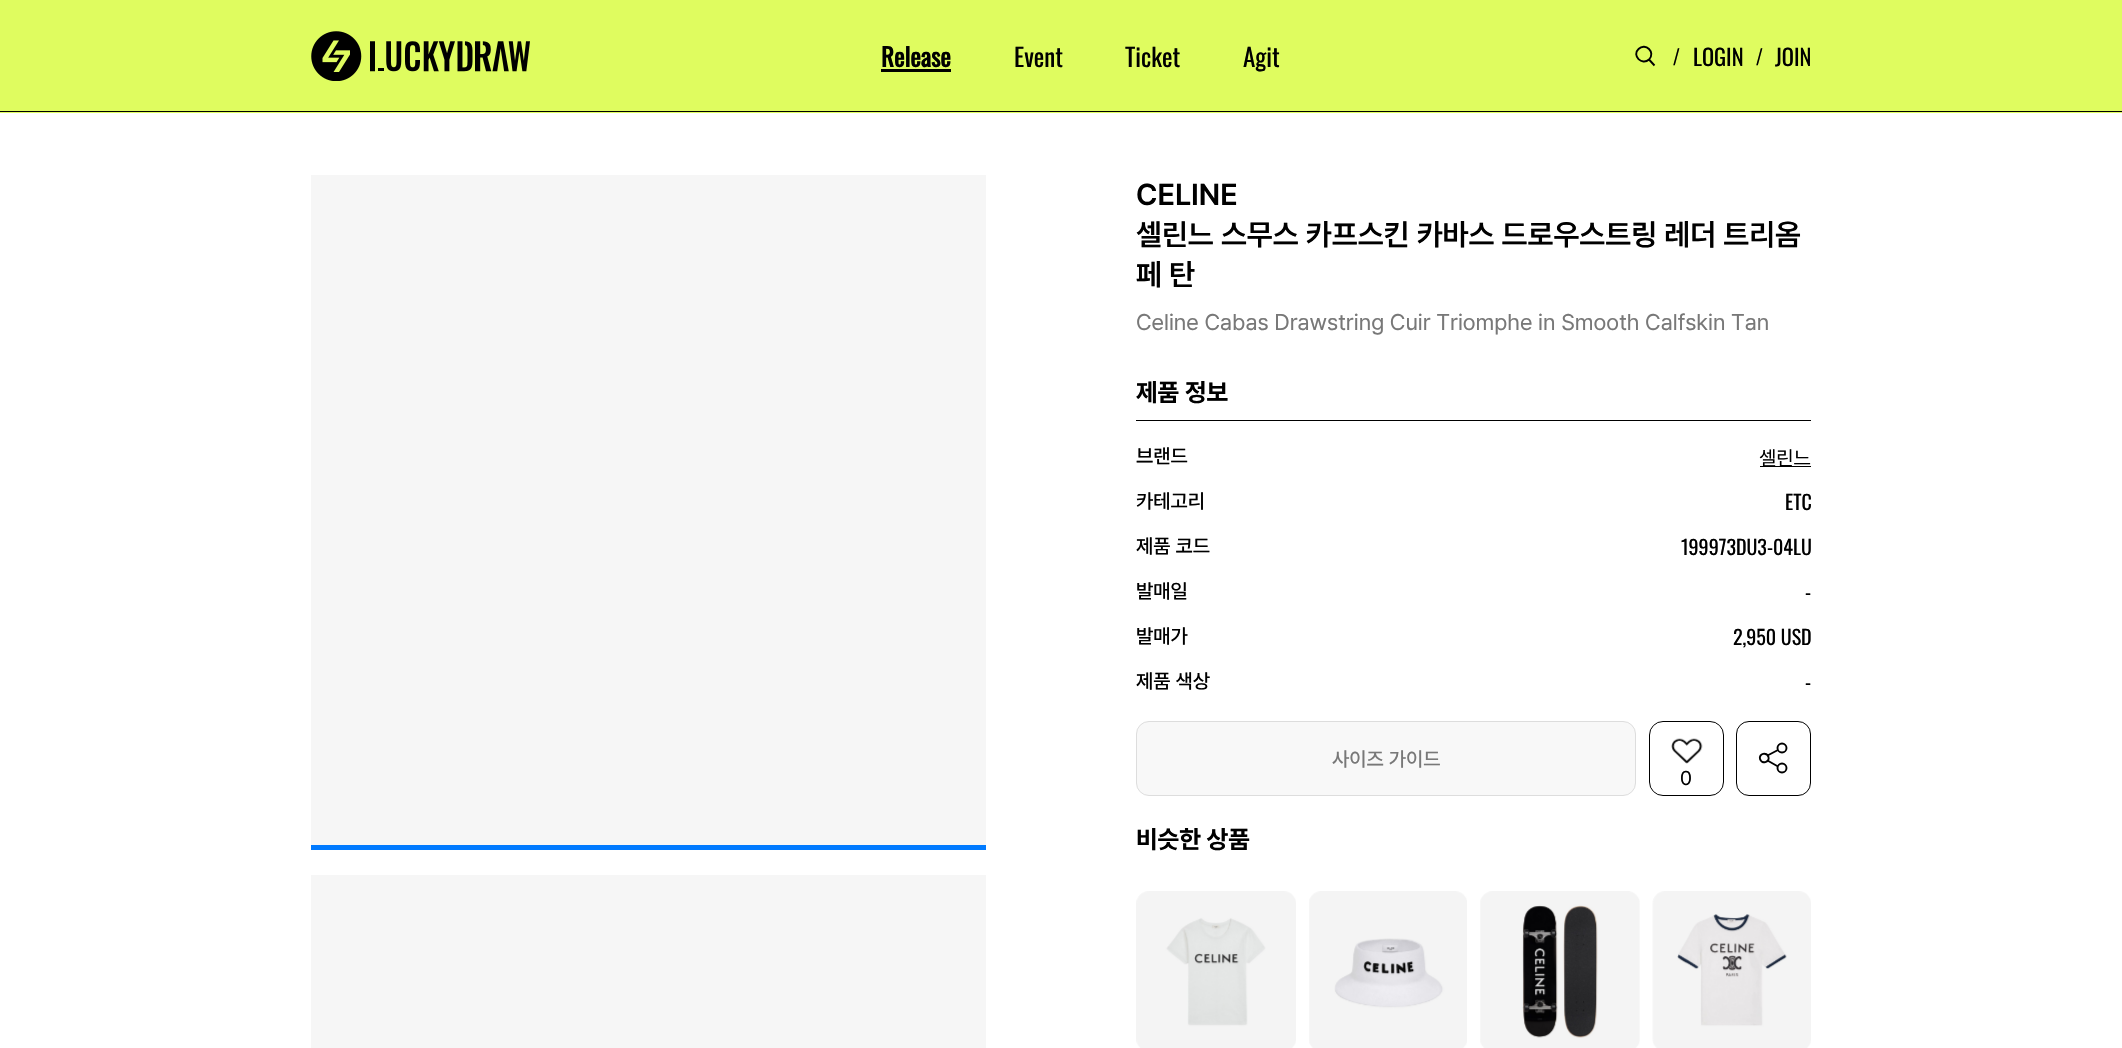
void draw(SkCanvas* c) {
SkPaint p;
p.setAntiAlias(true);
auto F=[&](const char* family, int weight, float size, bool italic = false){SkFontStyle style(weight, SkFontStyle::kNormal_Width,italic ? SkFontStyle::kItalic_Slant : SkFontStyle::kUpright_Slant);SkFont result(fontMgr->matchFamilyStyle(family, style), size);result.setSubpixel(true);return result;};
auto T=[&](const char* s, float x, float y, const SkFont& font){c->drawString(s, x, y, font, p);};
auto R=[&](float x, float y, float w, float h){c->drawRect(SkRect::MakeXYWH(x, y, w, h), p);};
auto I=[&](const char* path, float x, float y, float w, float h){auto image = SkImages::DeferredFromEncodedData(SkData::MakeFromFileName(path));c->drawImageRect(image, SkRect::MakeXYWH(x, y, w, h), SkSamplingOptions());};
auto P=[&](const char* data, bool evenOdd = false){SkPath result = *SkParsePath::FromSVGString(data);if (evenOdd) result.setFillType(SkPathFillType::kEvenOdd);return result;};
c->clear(0xffffffff);
p.setColor(0xffdffc5f);
R(0,0,2122,113);
p.setColor(0xff000000);
R(0,111,2122,1);
I("1.png",311,31,219,50);
auto f1 = F("Oswald",700,25);
T("Release",881,67,f1);
R(881,69,70,3);
auto f2 = F("Oswald",400,25);
T("Event",1014,67,f2);
T("Ticket",1125,67,f2);
T("Agit",1243,67,f2);
p.setStroke(true);
p.setStrokeWidth(1.9);
c->drawPath(P("M1638.5 49c7-7 17.5 3.5 10.5 10.5c-7 6.5-17.5-4-10.5-10.5zm10.5 10.5l5.5 6"),p);
auto f3 = F("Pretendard",400,20);
p.setStroke(false);
T("/",1673,63,f3);
auto f4 = F("Oswald",400,22.5);
T("LOGIN",1693,66,f4);
T("/",1756,63,f3);
T("JOIN",1775,66,f4);
p.setColor(0xfff6f6f6);
R(311,175,675,670);
p.setColor(0xff007aff);
R(311,845,675,5);
p.setColor(0xfff6f6f6);
R(311,875,675,173);
auto f5 = F("Pretendard",600,30);
p.setColor(0xff000000);
T("CELINE",1136,205,f5);
T("셀린느 스무스 카프스킨 카바스 드로우스트링 레더 트리옴",1136,245,f5);
T("페 탄",1136,285,f5);
auto f6 = F("Pretendard",400,22.5);
p.setColor(0xff787878);
T("Celine Cabas Drawstring Cuir Triomphe in Smooth Calfskin Tan",1136,330,f6);
auto f7 = F("Pretendard",700,25);
p.setColor(0xff000000);
T("제품 정보",1136,401,f7);
R(1136,420,675,1);
auto f8 = F("Pretendard",500,20);
T("브랜드",1136,463,f8);
R(1760,466,51,1);
T("셀린느",1759,465,f3);
T("카테고리",1136,508,f8);
auto f9 = F("Oswald",400,20);
T("ETC",1785,510,f9);
T("제품 코드",1136,553,f8);
T("199973DU3-04LU",1681,555,f9);
T("발매일",1136,598,f8);
T("-",1805,600,f9);
T("발매가",1136,643,f8);
T("2,950 USD",1733,645,f9);
T("제품 색상",1136,688,f8);
T("-",1805,690,f9);
p.setColor(0xfff8f8f8);
c->drawRoundRect(SkRect::MakeXYWH(1136.5,721.5,499,74),12.5,12.5,p);
p.setStroke(true);
p.setStrokeWidth(1);
p.setColor(0xffdddddd);
c->drawRoundRect(SkRect::MakeXYWH(1136.5,721.5,499,74),12.5,12.5,p);
p.setStroke(false);
p.setColor(0xff787878);
T("사이즈 가이드",1332,766,f8);
p.setStroke(true);
p.setColor(0xff000000);
c->drawRoundRect(SkRect::MakeXYWH(1736.5,721.5,74,74),12.5,12.5,p);
p.setStrokeWidth(1.9);
c->drawPath(P("M1768.5 757c1.5 5.5-7 7.5-8.5 2c-1.5-5.5 7-7.5 8.5-2z"),p);
c->drawCircle(1782,748,4.5,p);
c->drawCircle(1782,768,4.5,p);
c->drawPath(P("M1767.5 755.5l10.5-5.5m-10.5 10.5l10.5 6"),p);
p.setStrokeWidth(1);
c->drawRoundRect(SkRect::MakeXYWH(1649.5,721.5,74,74),13.5,13.5,p);
I("2.png",1671,738,32,26);
p.setStroke(false);
T("0",1680,785,f3);
T("비슷한 상품",1136,848,f7);
I("3.png",1136,891,160,157);
I("4.png",1309,891,158,157);
I("5.png",1480,891,160,157);
I("6.png",1652,891,159,157);
}
